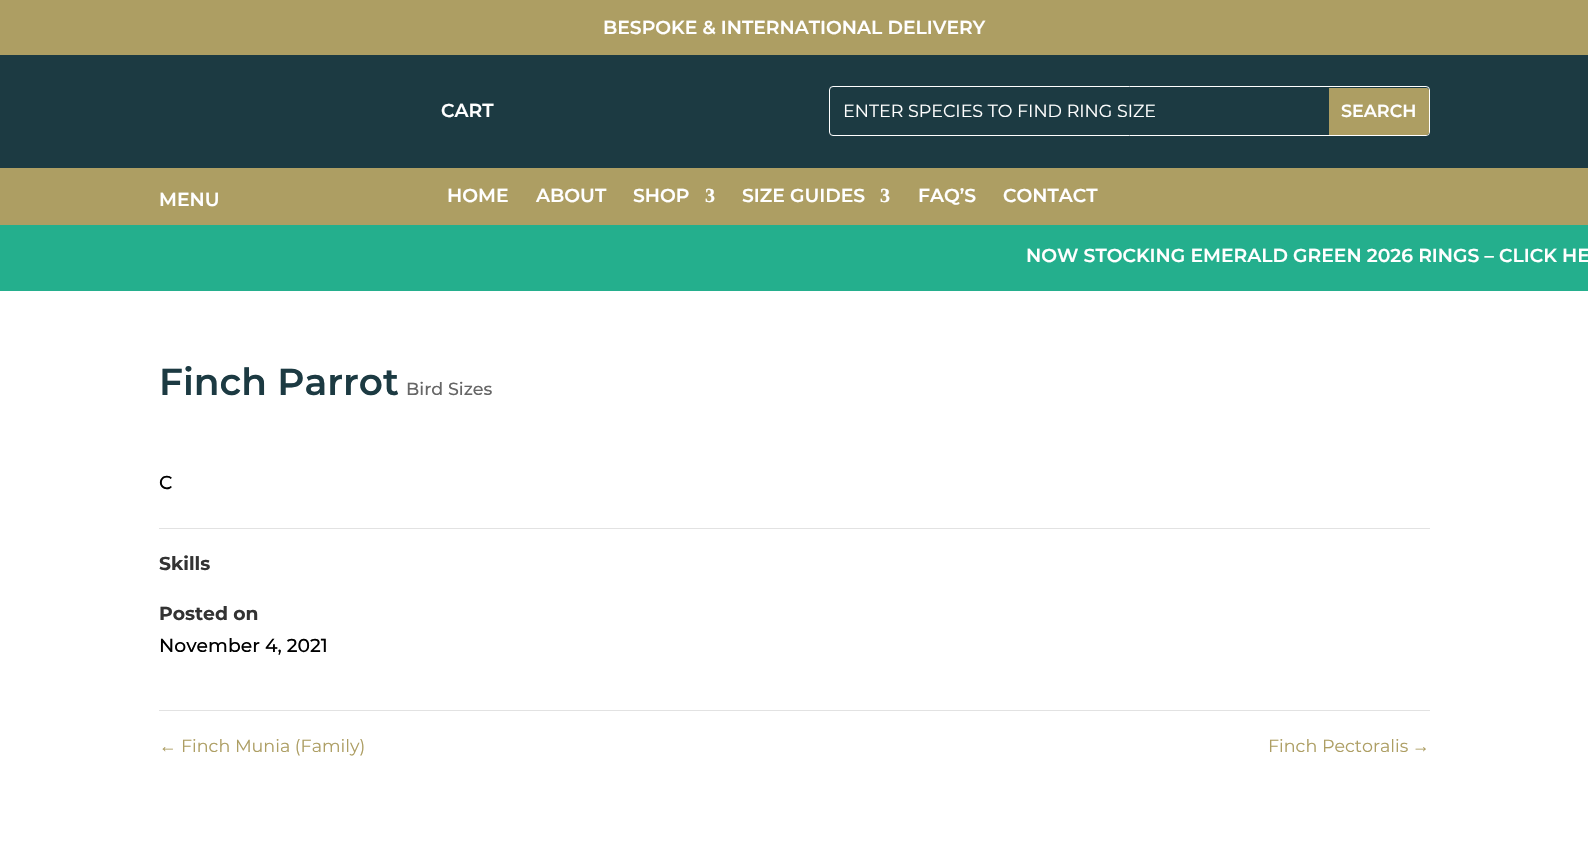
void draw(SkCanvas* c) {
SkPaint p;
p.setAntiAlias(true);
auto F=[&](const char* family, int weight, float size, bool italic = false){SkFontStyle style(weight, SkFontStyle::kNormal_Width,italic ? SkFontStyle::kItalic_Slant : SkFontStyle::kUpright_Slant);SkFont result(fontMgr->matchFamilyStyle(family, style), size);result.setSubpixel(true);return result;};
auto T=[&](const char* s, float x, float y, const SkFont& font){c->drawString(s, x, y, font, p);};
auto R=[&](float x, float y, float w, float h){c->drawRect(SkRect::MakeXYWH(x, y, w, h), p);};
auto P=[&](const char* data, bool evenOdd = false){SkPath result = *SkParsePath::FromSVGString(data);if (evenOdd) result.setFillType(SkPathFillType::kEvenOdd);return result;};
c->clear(0xffffffff);
p.setColor(0xffad9e63);
R(0,0,1588,55);
auto f1 = F("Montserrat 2",100,18.75);
p.setColor(0xffffffff);
T("BESPOKE & INTERNATIONAL DELIVERY",603,34,f1);
p.setColor(0xff1c3a42);
R(0,55,1588,113);
p.setColor(0xffffffff);
T("CART",441,117,f1);
p.setStroke(true);
p.setStrokeWidth(1);
c->drawRoundRect(SkRect::MakeXYWH(829.5,86.5,600,49),3.5,3.5,p);
auto f2 = F("Montserrat",100,17.5);
p.setStroke(false);
T("ENTER SPECIES TO FIND RING SIZE",843,117,f2);
p.setColor(0xffad9e63);
c->drawPath(P("M1329 88h97.5c1.5 0 2.5 1 2.5 2.5v42c0 1.5-1 2.5-2.5 2.5h-97.5z"),p);
auto f3 = F("Montserrat 2",100,17.5);
p.setColor(0xffffffff);
T("SEARCH",1341,117,f3);
p.setColor(0xffad9e63);
R(0,168,1588,57);
p.setColor(0xffffffff);
T("MENU",159,206,f1);
T("HOME",447,202,f1);
T("ABOUT",536,202,f1);
T("SHOP",633,202,f1);
auto f4 = F("Liberation Serif",700,20);
T("3",705,202,f4);
T("SIZE GUIDES",742,202,f1);
T("3",880,202,f4);
T("FAQ’S",918,202,f1);
T("CONTACT",1003,202,f1);
p.setColor(0xff24af8d);
R(0,225,1588,66);
p.setColor(0xffffffff);
T("NOW STOCKING EMERALD GREEN 2026 RINGS – CLICK HE",1026,262,f1);
auto f5 = F("Montserrat 2",100,37.5);
p.setColor(0xff1c3a42);
T("Finch Parrot",159,395,f5);
auto f6 = F("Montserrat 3",100,17.5);
p.setColor(0xff666666);
T("Bird Sizes",406,395,f6);
auto f7 = F("Montserrat 3",100,18.75);
p.setColor(0xff000000);
T("C",159,489,f7);
p.setColor(0xffe2e2e2);
R(159,528,1271,1);
R(159,710,1271,1);
auto f8 = F("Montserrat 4",100,18.75);
p.setColor(0xff333333);
T("Skills",159,570,f8);
T("Posted on",159,620,f8);
p.setColor(0xff000000);
T("November 4, 2021",159,652,f7);
auto f9 = F("Liberation Sans",400,17.5);
p.setColor(0xffad9e63);
T("←",159,752,f9);
T("Finch Munia (Family)",181,752,f2);
T("Finch Pectoralis",1268,752,f2);
T("→",1412,752,f9);
}
